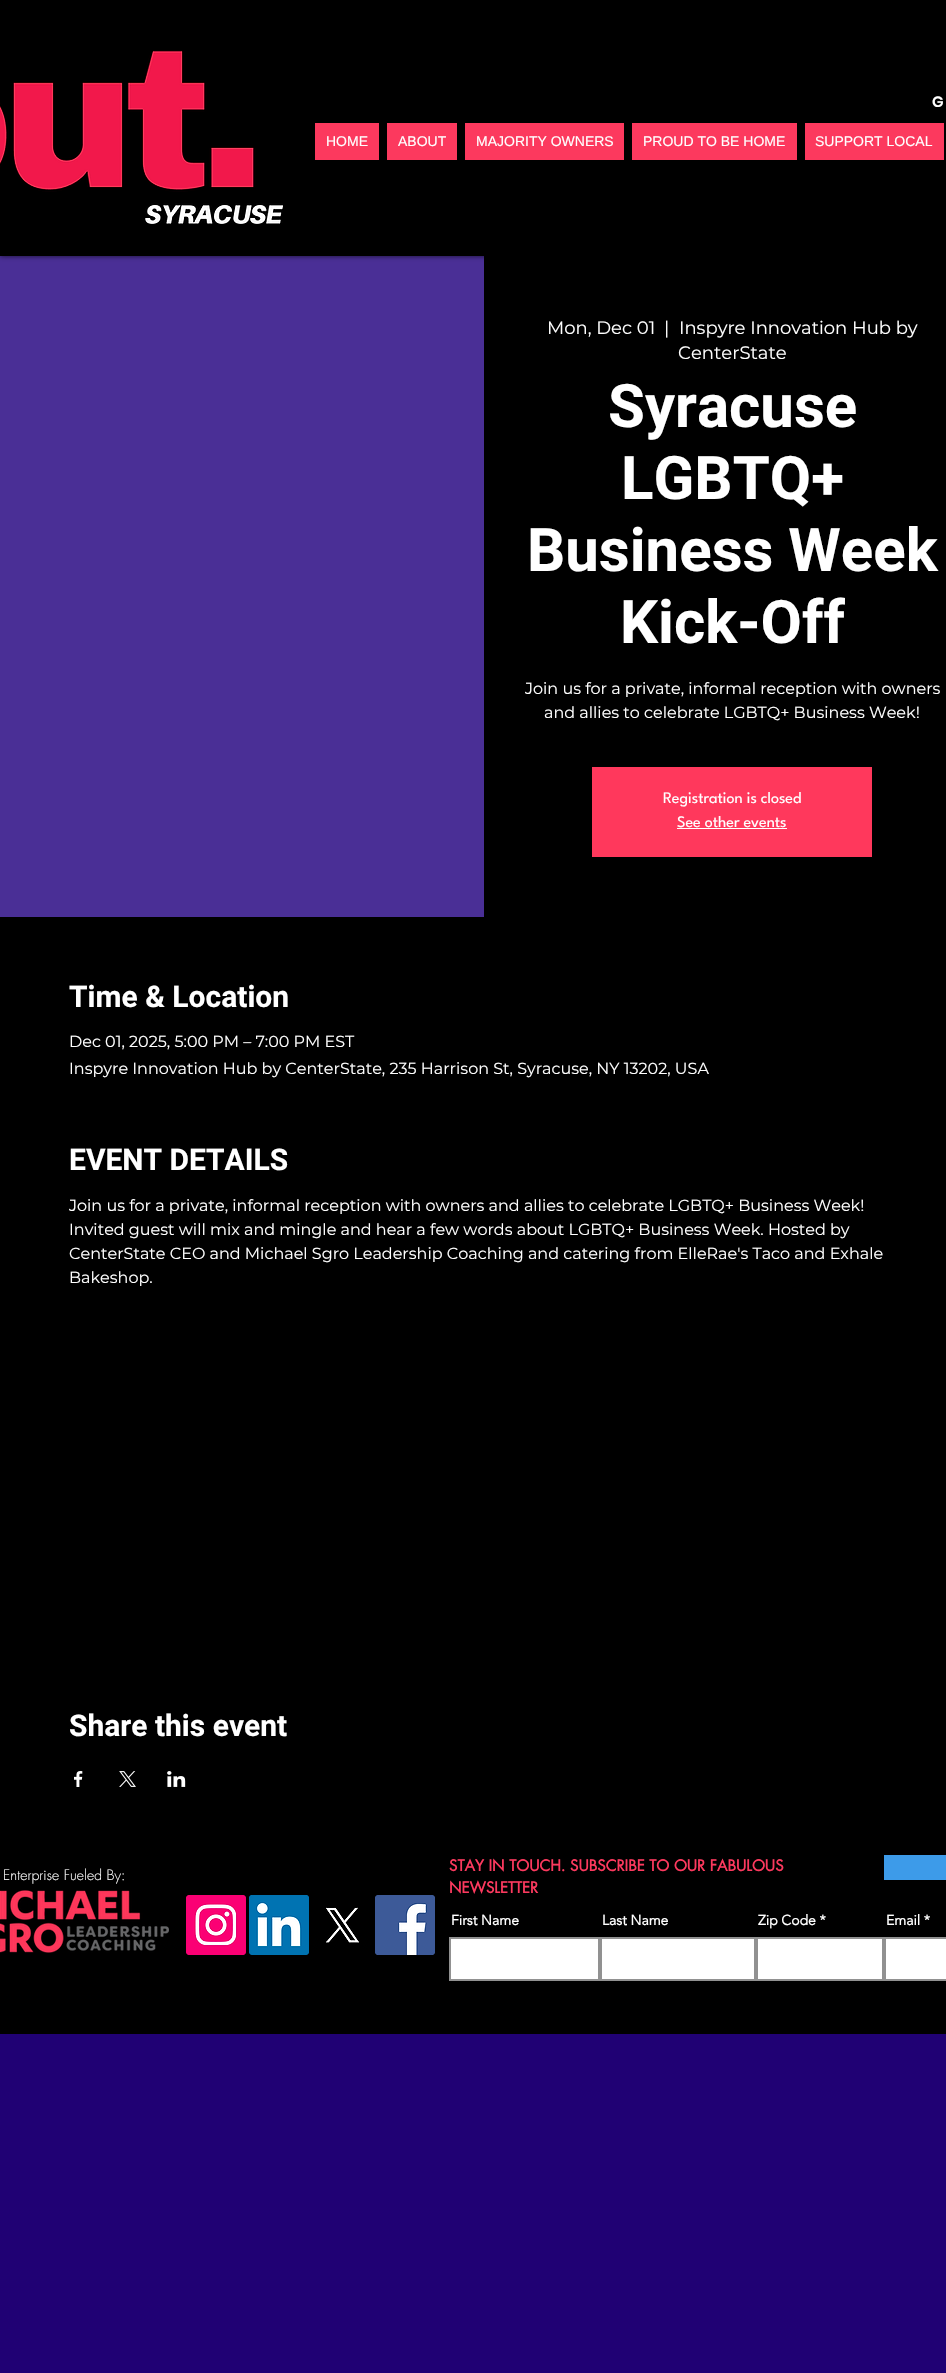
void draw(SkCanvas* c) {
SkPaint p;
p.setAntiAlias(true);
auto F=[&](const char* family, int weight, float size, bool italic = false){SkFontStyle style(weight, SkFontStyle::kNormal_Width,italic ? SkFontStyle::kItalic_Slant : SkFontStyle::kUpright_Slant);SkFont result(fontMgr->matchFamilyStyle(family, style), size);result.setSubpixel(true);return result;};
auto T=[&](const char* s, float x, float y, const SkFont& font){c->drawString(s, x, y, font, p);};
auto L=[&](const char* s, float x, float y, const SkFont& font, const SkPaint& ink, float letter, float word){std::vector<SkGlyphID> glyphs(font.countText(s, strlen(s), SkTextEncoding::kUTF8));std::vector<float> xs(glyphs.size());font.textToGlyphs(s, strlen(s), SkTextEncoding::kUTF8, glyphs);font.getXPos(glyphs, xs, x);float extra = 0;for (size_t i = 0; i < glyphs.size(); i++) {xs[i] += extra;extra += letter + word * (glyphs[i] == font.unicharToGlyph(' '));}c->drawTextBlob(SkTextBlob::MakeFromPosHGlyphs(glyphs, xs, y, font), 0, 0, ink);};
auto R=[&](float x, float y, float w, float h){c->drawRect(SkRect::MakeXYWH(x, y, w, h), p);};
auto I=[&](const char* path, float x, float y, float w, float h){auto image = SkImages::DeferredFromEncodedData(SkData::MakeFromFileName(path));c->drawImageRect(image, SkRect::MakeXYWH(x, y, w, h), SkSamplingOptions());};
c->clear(0xff200174);
p.setColor(0xff000000);
R(0,256,946,1778);
p.setColor(0xff4a2f96);
R(0,256,484,661);
p.setColor(0xb3000000);
p.setMaskFilter(SkMaskFilter::MakeBlur(kNormal_SkBlurStyle, 2.5));
c->drawRect(SkRect::MakeXYWH(0,0,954,256),p);
p.setMaskFilter(nullptr);
p.setColor(0xff000000);
R(0,0,946,256);
I("1.png",0,50,283,174);
auto f1 = F("Poppins",600,15);
p.setColor(0xffffffff);
T("G",932,107,f1);
p.setColor(0xfffc395e);
R(315,123,64,37);
auto f2 = F("Liberation Sans",400,14);
p.setColor(0xffffffff);
T("HOME",326,146,f2);
p.setColor(0xfffc395e);
R(387,123,70,37);
p.setColor(0xffffffff);
T("ABOUT",398,146,f2);
p.setColor(0xfffc395e);
R(465,123,159,37);
p.setColor(0xffffffff);
T("MAJORITY OWNERS",476,146,f2);
p.setColor(0xfffc395e);
R(632,123,165,37);
p.setColor(0xffffffff);
T("PROUD TO BE HOME",643,146,f2);
p.setColor(0xfffc395e);
R(805,123,139,37);
p.setColor(0xffffffff);
T("SUPPORT LOCAL",815,146,f2);
auto f3 = F("Montserrat",400,18);
T("Mon, Dec 01",547,334,f3);
T("|",664,334,f3);
T("Inspyre Innovation Hub by",679,334,f3);
T("CenterState",678,359,f3);
auto f4 = F("Roboto",700,60);
T("Syracuse",608,427,f4);
T("LGBTQ+",621,499,f4);
T("Business Week",527,571,f4);
T("Kick-Off",620,643,f4);
auto f5 = F("Montserrat",400,16);
T("Join us for a private, informal reception with owners",525,694,f5);
T("and allies to celebrate LGBTQ+ Business Week!",544,718,f5);
p.setColor(0xffff385c);
R(592,767,280,90);
auto f6 = F("League Spartan",400,16);
p.setColor(0xffffffff);
T("Registration is closed",663,803,f6);
T("See other events",677,827,f6);
R(677,828,110,1);
auto f7 = F("Roboto",700,30);
T("Time & Location",69,1007,f7);
T("Dec 01, 2025, 5:00 PM – 7:00 PM EST",69,1047,f5);
T("Inspyre Innovation Hub by CenterState, 235 Harrison St, Syracuse, NY 13202, USA",69,1074,f5);
T("EVENT DETAILS",69,1170,f7);
T("Join us for a private, informal reception with owners and allies to celebrate LGBTQ+ Business Week!",69,1211,f5);
T("Invited guest will mix and mingle and hear a few words about LGBTQ+ Business Week. Hosted by",69,1235,f5);
T("CenterState CEO and Michael Sgro Leadership Coaching and catering from ElleRae's Taco and Exhale",69,1259,f5);
T("Bakeshop.",69,1283,f5);
T("Share this event",69,1736,f7);
I("2.png",74,1771,9,16);
I("3.png",119,1771,17,16);
I("4.png",167,1771,19,16);
auto f8 = F("futura",300,14);
L("Enterprise Fueled By:",3,1880,f8,p,.1,0);
I("5.png",0,1890,169,63);
auto f9 = F("futura",700,15);
p.setColor(0xfffc395e);
T("STAY IN TOUCH. SUBSCRIBE TO OUR FABULOUS",449,1871,f9);
T("NEWSLETTER",449,1893,f9);
p.setColor(0xff3d9be9);
R(884,1855,62,25);
auto f10 = F("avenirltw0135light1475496",700,14);
p.setColor(0xffffffff);
T("First Name",451,1925,f10);
c->drawRect(SkRect::MakeXYWH(450,1938,149,42),p);
p.setStroke(true);
p.setStrokeWidth(2);
p.setColor(0xff919191);
c->drawRect(SkRect::MakeXYWH(450,1938,149,42),p);
p.setStroke(false);
p.setColor(0xffffffff);
T("Last Name",602,1925,f10);
c->drawRect(SkRect::MakeXYWH(601,1938,154,42),p);
p.setStroke(true);
p.setColor(0xff919191);
c->drawRect(SkRect::MakeXYWH(601,1938,154,42),p);
p.setStroke(false);
p.setColor(0xffffffff);
T("Zip Code *",758,1925,f10);
c->drawRect(SkRect::MakeXYWH(757,1938,126,42),p);
p.setStroke(true);
p.setColor(0xff919191);
c->drawRect(SkRect::MakeXYWH(757,1938,126,42),p);
p.setStroke(false);
p.setColor(0xffffffff);
T("Email *",886,1925,f10);
c->drawRect(SkRect::MakeXYWH(885,1938,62,42),p);
p.setStroke(true);
p.setColor(0xff919191);
c->drawRect(SkRect::MakeXYWH(885,1938,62,42),p);
I("6.png",186,1895,60,60);
I("7.png",249,1895,60,60);
I("8.png",326,1907,33,36);
I("9.png",375,1895,60,60);
}
